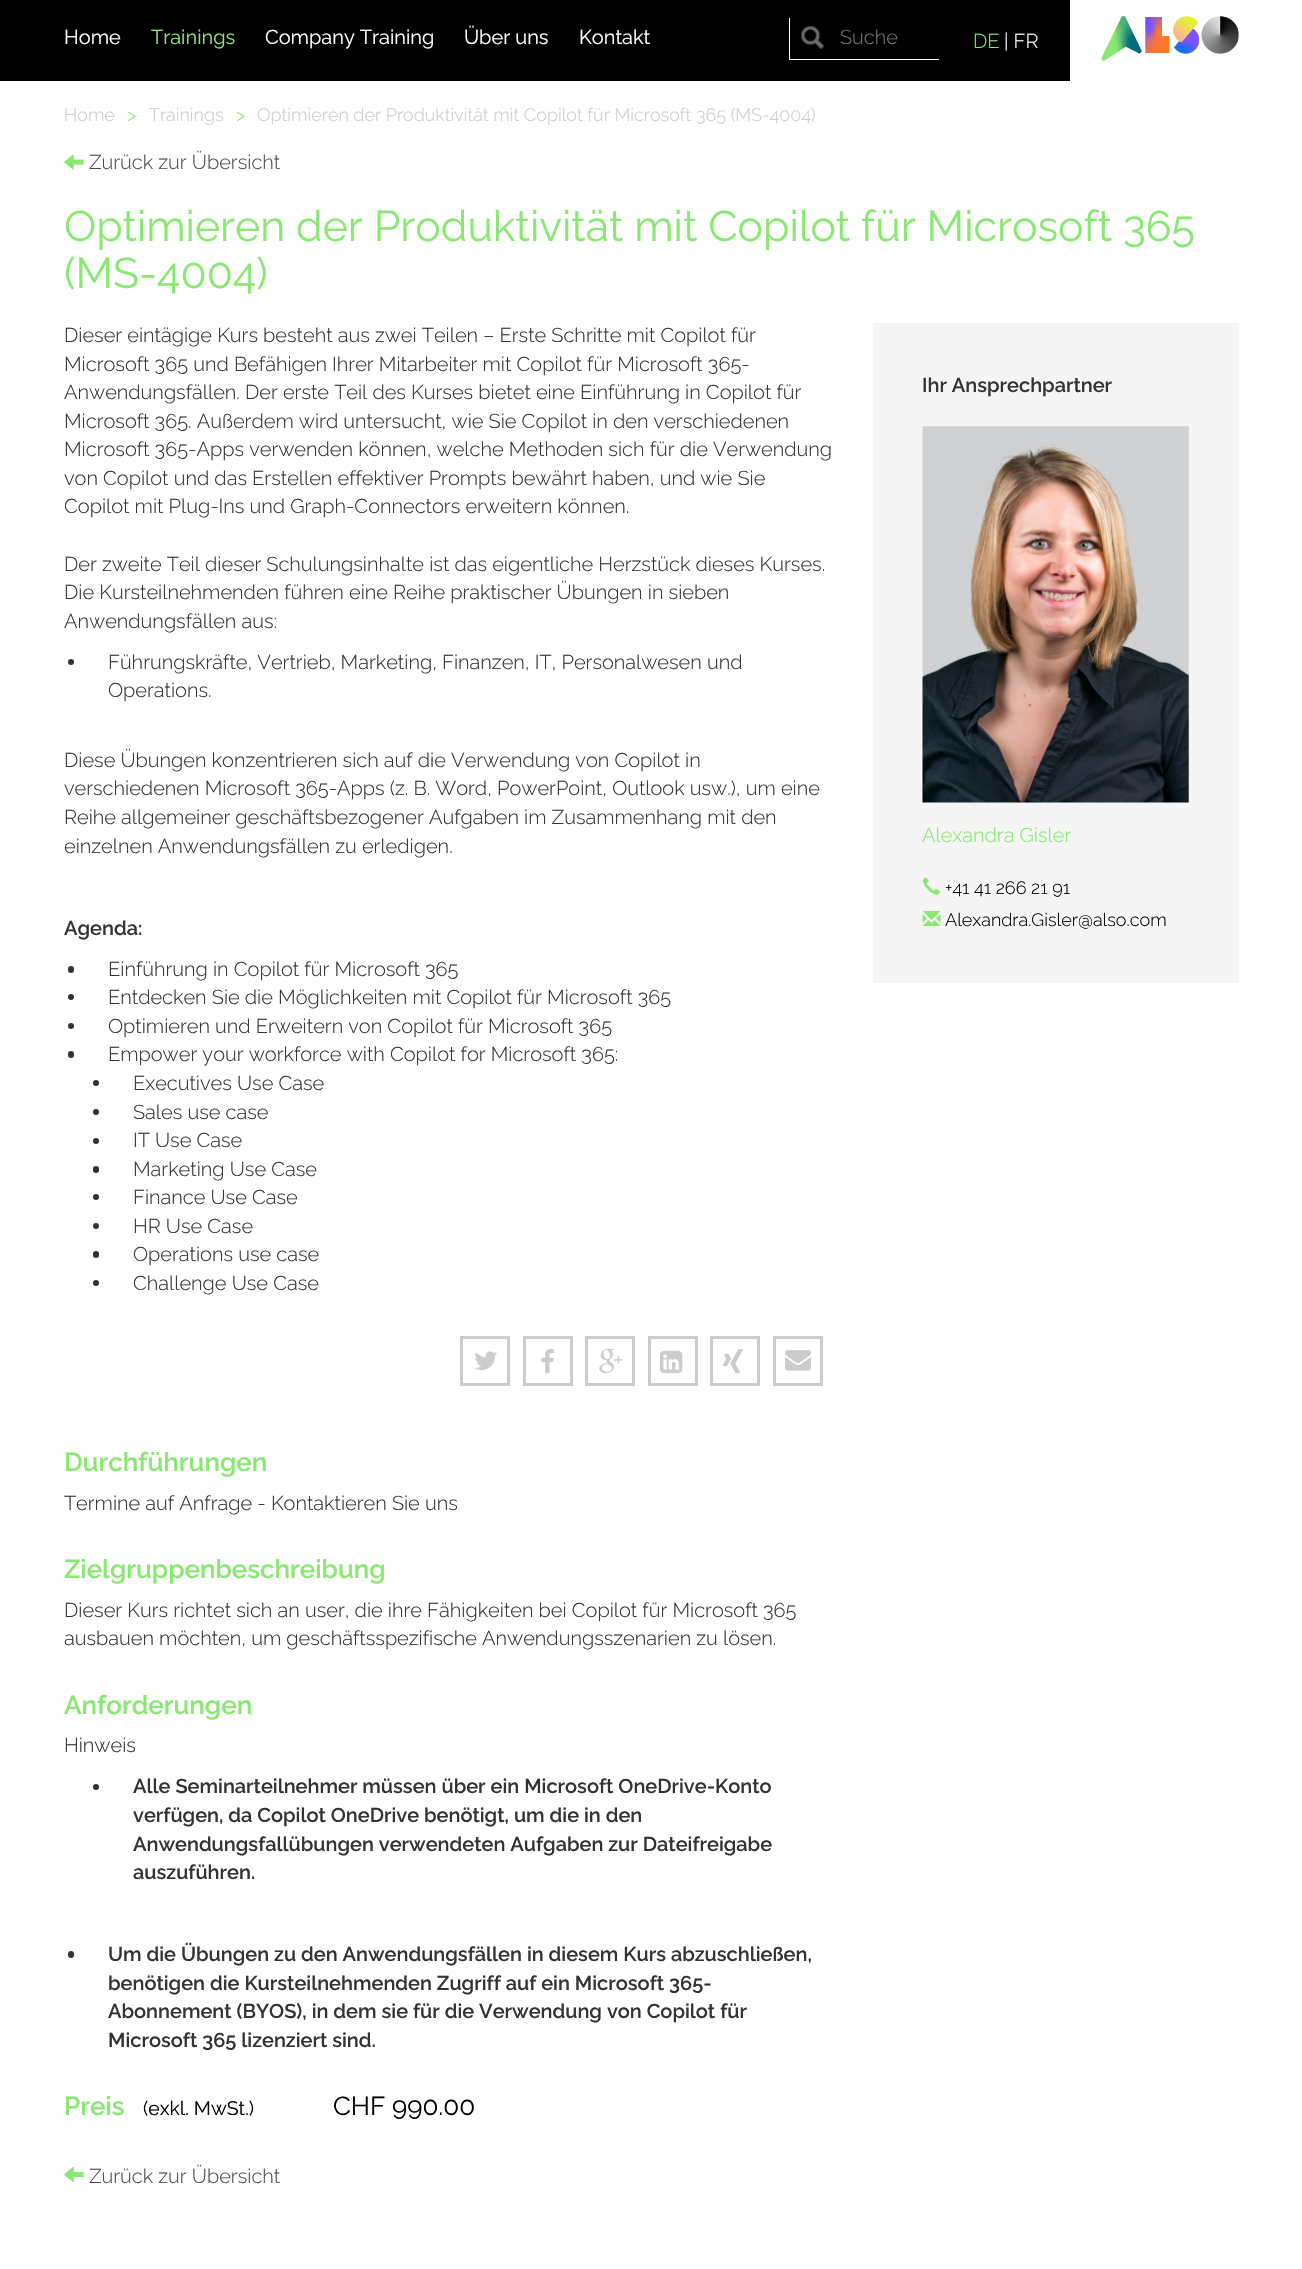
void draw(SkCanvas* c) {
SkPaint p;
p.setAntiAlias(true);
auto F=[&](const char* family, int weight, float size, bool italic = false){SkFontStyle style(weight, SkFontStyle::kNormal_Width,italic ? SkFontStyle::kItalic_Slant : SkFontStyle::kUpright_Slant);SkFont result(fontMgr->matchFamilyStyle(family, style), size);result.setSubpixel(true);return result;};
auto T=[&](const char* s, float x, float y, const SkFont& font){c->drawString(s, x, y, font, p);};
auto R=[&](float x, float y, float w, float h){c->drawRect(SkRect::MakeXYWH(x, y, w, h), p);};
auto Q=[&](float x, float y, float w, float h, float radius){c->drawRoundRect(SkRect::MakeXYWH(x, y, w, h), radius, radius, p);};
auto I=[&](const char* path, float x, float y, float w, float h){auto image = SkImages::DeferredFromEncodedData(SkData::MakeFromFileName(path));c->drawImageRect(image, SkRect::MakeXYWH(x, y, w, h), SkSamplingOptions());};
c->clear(0xffffffff);
p.setColor(0xff000000);
R(0,0,1070,81);
auto f1 = F("Raleway",400,20);
p.setColor(0xffffffff);
T("Home",64,44,f1);
p.setColor(0xff89e872);
T("Trainings",151,44,f1);
p.setColor(0xffffffff);
T("Company Training",265,44,f1);
T("Über uns",464,44,f1);
T("Kontakt",579,44,f1);
I("1.png",801,26,23,23);
R(789,59,150,1);
R(789,18,1,42);
auto f2 = F("Raleway",300,20);
p.setColor(0xff777777);
T("Suche",840,44,f2);
p.setColor(0xff89e872);
T("DE",973,48,f2);
p.setColor(0xffffffff);
T("| FR",1004,48,f2);
I("2.png",1101,16,138,46);
auto f3 = F("Raleway",300,18);
p.setColor(0xffcccccc);
T("Home",64,121,f3);
p.setColor(0xff89e872);
T(">",127,121,f3);
p.setColor(0xffcccccc);
T("Trainings",149,121,f3);
p.setColor(0xff89e872);
T(">",236,121,f3);
p.setColor(0xffcccccc);
T("Optimieren der Produktivität mit Copilot für Microsoft 365 (MS-4004)",257,121,f3);
I("3.png",64,154,20,16);
p.setColor(0xff4c4c4c);
T("Zurück zur Übersicht",89,169,f2);
auto f4 = F("Raleway",400,42.8);
p.setColor(0xff89e872);
T("Optimieren der Produktivität mit Copilot für Microsoft 365",64,241,f4);
T("(MS-4004)",64,288,f4);
p.setColor(0xff333333);
T("Dieser eintägige Kurs besteht aus zwei Teilen – Erste Schritte mit Copilot für",64,342,f2);
T("Microsoft 365 und Befähigen Ihrer Mitarbeiter mit Copilot für Microsoft 365-",64,371,f2);
T("Anwendungsfällen. Der erste Teil des Kurses bietet eine Einführung in Copilot für",64,399,f2);
T("Microsoft 365. Außerdem wird untersucht, wie Sie Copilot in den verschiedenen",64,428,f2);
T("Microsoft 365-Apps verwenden können, welche Methoden sich für die Verwendung",64,456,f2);
T("von Copilot und das Erstellen effektiver Prompts bewährt haben, und wie Sie",64,485,f2);
T("Copilot mit Plug-Ins und Graph-Connectors erweitern können.",64,513,f2);
T("Der zweite Teil dieser Schulungsinhalte ist das eigentliche Herzstück dieses Kurses.",64,571,f2);
T("Die Kursteilnehmenden führen eine Reihe praktischer Übungen in sieben",64,599,f2);
T("Anwendungsfällen aus:",64,628,f2);
c->drawCircle(71,662,3,p);
T("Führungskräfte, Vertrieb, Marketing, Finanzen, IT, Personalwesen und",108,669,f2);
T("Operations.",108,697,f2);
T("Diese Übungen konzentrieren sich auf die Verwendung von Copilot in",64,767,f2);
T("verschiedenen Microsoft 365-Apps (z. B. Word, PowerPoint, Outlook usw.), um eine",64,795,f2);
T("Reihe allgemeiner geschäftsbezogener Aufgaben im Zusammenhang mit den",64,824,f2);
T("einzelnen Anwendungsfällen zu erledigen.",64,853,f2);
auto f5 = F("Raleway",600,20);
T("Agenda:",64,935,f5);
Q(68,966,6,7,3);
T("Einführung in Copilot für Microsoft 365",108,976,f2);
c->drawCircle(71,997,3,p);
T("Entdecken Sie die Möglichkeiten mit Copilot für Microsoft 365",108,1004,f2);
c->drawCircle(71,1026,3,p);
T("Optimieren und Erweitern von Copilot für Microsoft 365",108,1033,f2);
Q(68,1051,6,7,3);
T("Empower your workforce with Copilot for Microsoft 365:",108,1061,f2);
c->drawCircle(96,1083,3,p);
T("Executives Use Case",133,1090,f2);
c->drawCircle(96,1112,3,p);
T("Sales use case",133,1119,f2);
c->drawCircle(96,1141,3,p);
T("IT Use Case",133,1147,f2);
Q(93,1166,6,7,3);
T("Marketing Use Case",133,1176,f2);
c->drawCircle(96,1197,3,p);
T("Finance Use Case",133,1204,f2);
c->drawCircle(96,1226,3,p);
T("HR Use Case",133,1233,f2);
Q(93,1251,6,7,3);
T("Operations use case",133,1261,f2);
c->drawCircle(96,1283,3,p);
T("Challenge Use Case",133,1290,f2);
p.setColor(0xfff5f5f5);
R(873,323,366,660);
p.setColor(0xff333333);
T("Ihr Ansprechpartner",922,392,f5);
I("4.png",922,426,267,377);
p.setColor(0xff89e872);
T("Alexandra Gisler",922,842,f2);
I("5.png",922,877,19,18);
p.setColor(0xff000000);
T("+41 41 266 21 91",945,894,f3);
I("6.png",922,911,19,15);
T("Alexandra.Gisler@also.com",945,926,f3);
p.setStroke(true);
p.setStrokeWidth(3);
p.setColor(0xffcccccc);
c->drawRect(SkRect::MakeXYWH(461.5,1337.5,47,47),p);
I("7.png",475,1351,22,19);
c->drawRect(SkRect::MakeXYWH(524.5,1337.5,47,47),p);
I("8.png",541,1349,13,25);
c->drawRect(SkRect::MakeXYWH(586.5,1337.5,47,47),p);
I("9.png",599,1349,24,24);
c->drawRect(SkRect::MakeXYWH(649.5,1337.5,47,47),p);
I("10.png",660,1350,23,24);
c->drawRect(SkRect::MakeXYWH(711.5,1337.5,47,47),p);
I("11.png",722,1349,21,25);
c->drawRect(SkRect::MakeXYWH(774.5,1337.5,47,47),p);
I("12.png",785,1350,26,21);
auto f6 = F("Raleway",600,26);
p.setStroke(false);
p.setColor(0xff89e872);
T("Durchführungen",64,1471,f6);
p.setColor(0xff333333);
T("Termine auf Anfrage - Kontaktieren Sie uns",64,1510,f2);
p.setColor(0xff89e872);
T("Zielgruppenbeschreibung",64,1578,f6);
p.setColor(0xff333333);
T("Dieser Kurs richtet sich an user, die ihre Fähigkeiten bei Copilot für Microsoft 365",64,1617,f2);
T("ausbauen möchten, um geschäftsspezifische Anwendungsszenarien zu lösen.",64,1645,f2);
p.setColor(0xff89e872);
T("Anforderungen",64,1714,f6);
p.setColor(0xff333333);
T("Hinweis",64,1752,f2);
c->drawCircle(96,1787,3,p);
T("Alle Seminarteilnehmer müssen über ein Microsoft OneDrive-Konto",133,1793,f5);
T("verfügen, da Copilot OneDrive benötigt, um die in den",133,1822,f5);
T("Anwendungsfallübungen verwendeten Aufgaben zur Dateifreigabe",133,1851,f5);
T("auszuführen.",133,1879,f5);
Q(68,1951,6,7,3);
T("Um die Übungen zu den Anwendungsfällen in diesem Kurs abzuschließen,",108,1961,f5);
T("benötigen die Kursteilnehmenden Zugriff auf ein Microsoft 365-",108,1990,f5);
T("Abonnement (BYOS), in dem sie für die Verwendung von Copilot für",108,2018,f5);
T("Microsoft 365 lizenziert sind.",108,2047,f5);
p.setColor(0xff89e872);
T("Preis",64,2115,f6);
auto f7 = F("Raleway",400,19.5);
p.setColor(0xff000000);
T("(exkl. MwSt.)",143,2115,f7);
auto f8 = F("Raleway",400,26);
T("CHF 990.00",333,2115,f8);
I("13.png",64,2166,20,17);
p.setColor(0xff4c4c4c);
T("Zurück zur Übersicht",89,2183,f2);
}
